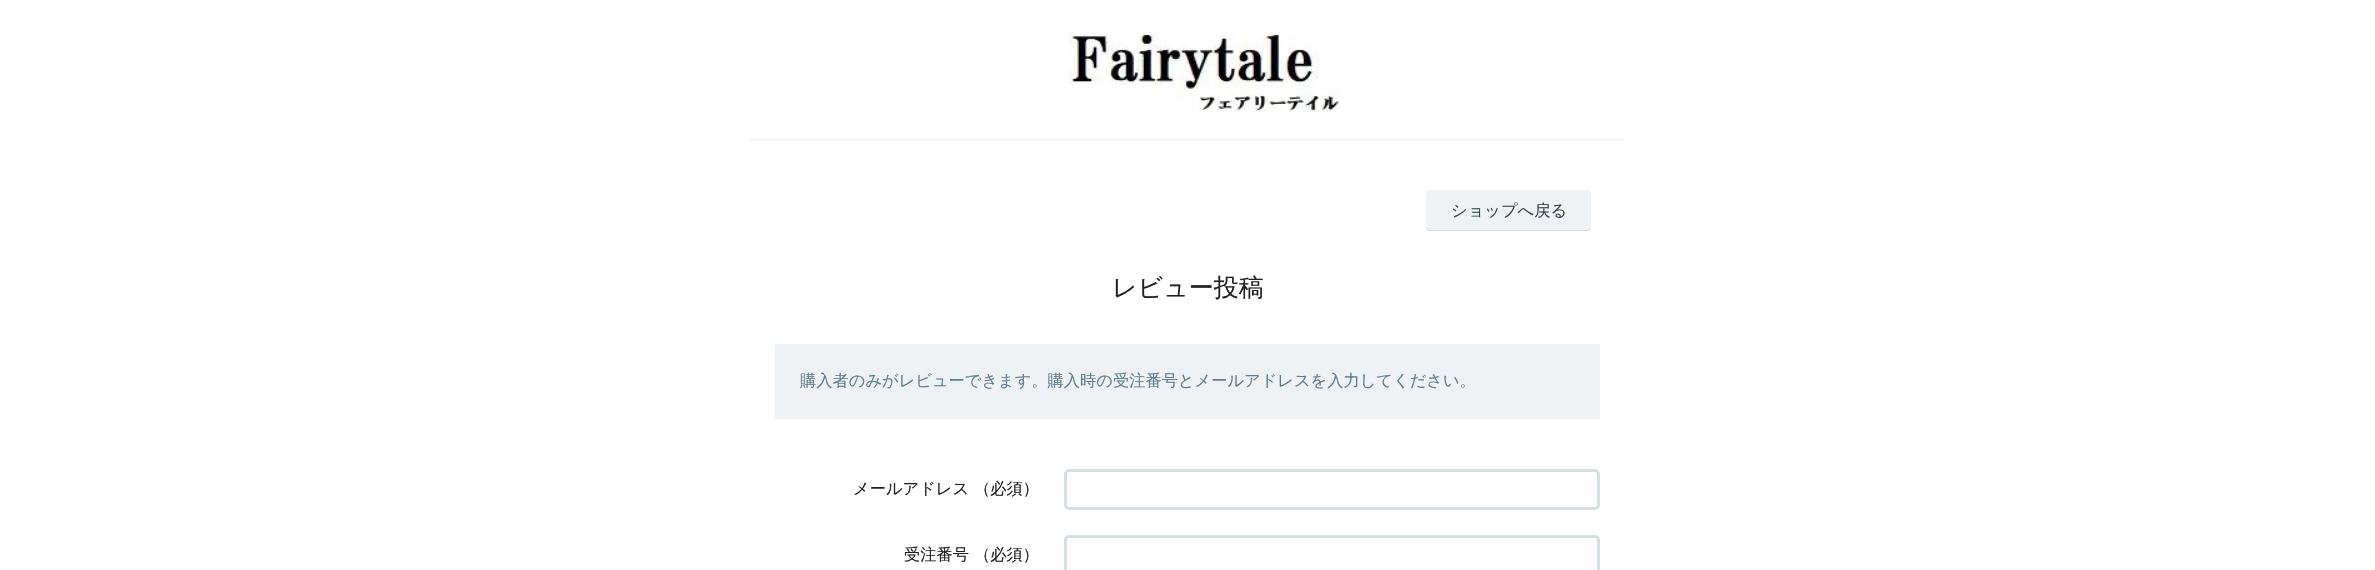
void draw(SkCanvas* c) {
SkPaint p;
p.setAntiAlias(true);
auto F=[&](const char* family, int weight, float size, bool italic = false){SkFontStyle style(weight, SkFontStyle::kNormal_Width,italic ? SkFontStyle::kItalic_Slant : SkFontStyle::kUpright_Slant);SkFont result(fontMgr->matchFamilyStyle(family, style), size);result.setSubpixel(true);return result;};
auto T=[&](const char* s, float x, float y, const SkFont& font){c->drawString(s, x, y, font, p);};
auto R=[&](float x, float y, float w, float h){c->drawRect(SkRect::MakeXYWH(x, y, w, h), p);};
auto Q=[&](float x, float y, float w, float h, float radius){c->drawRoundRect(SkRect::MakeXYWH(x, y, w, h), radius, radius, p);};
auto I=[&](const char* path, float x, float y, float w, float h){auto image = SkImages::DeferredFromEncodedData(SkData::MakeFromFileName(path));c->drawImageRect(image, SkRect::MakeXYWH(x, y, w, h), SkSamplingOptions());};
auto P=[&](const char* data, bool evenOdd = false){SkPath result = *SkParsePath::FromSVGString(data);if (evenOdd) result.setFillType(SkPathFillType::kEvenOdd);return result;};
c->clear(0xffffffff);
I("1.png",1069,32,270,81);
p.setColor(0xfff6f6f6);
R(750,138,875,3);
p.setColor(0xffeff2f4);
Q(1426,190,165,41,4);
p.setColor(0x1a000000);
c->drawPath(P("M1426 226v1c0 2 2 4 4 4h157c2 0 4-2 4-4v-1c0 2-1 4-3 4h-158c-2 0-4-2-4-4z"),p);
auto f1 = F("WenQuanYi Zen Hei",500,16.25);
p.setColor(0xff35454c);
T("ショップへ戻る",1451,216,f1);
auto f2 = F("WenQuanYi Zen Hei",500,25);
p.setColor(0xff222222);
T("レビュー投稿",1112,296,f2);
p.setColor(0xffeff2f4);
R(775,344,825,75);
p.setColor(0xff607d8b);
T("購入者のみがレビューできます。購入時の受注番号とメールアドレスを入力してください。",800,386,f1);
p.setColor(0xff222222);
T("メールアドレス",853,494,f1);
T("（必須）",974,494,f1);
p.setStroke(true);
p.setStrokeWidth(3);
p.setColor(0xffd7dee2);
c->drawRoundRect(SkRect::MakeXYWH(1065.5,470.5,533,38),3.5,3.5,p);
p.setStroke(false);
p.setColor(0xff222222);
T("受注番号",904,560,f1);
T("（必須）",974,560,f1);
p.setStroke(true);
p.setColor(0xffd7dee2);
c->drawRoundRect(SkRect::MakeXYWH(1065.5,536.5,533,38),3.5,3.5,p);
}
